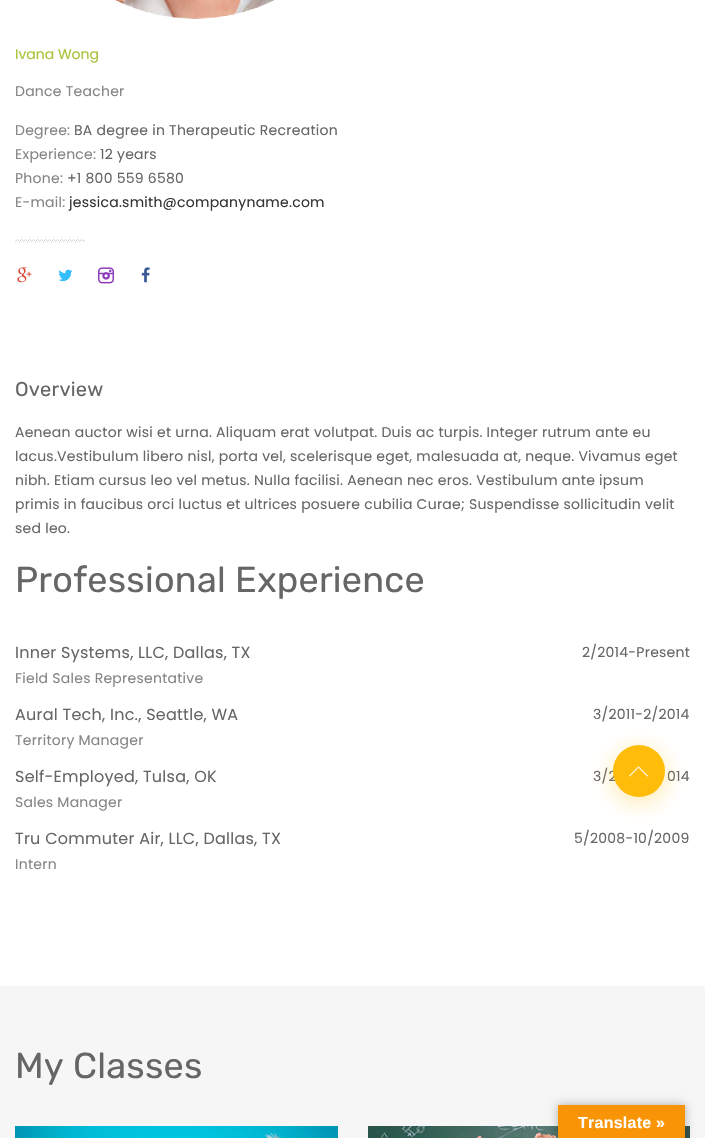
void draw(SkCanvas* c) {
SkPaint p;
p.setAntiAlias(true);
auto F=[&](const char* family, int weight, float size, bool italic = false){SkFontStyle style(weight, SkFontStyle::kNormal_Width,italic ? SkFontStyle::kItalic_Slant : SkFontStyle::kUpright_Slant);SkFont result(fontMgr->matchFamilyStyle(family, style), size);result.setSubpixel(true);return result;};
auto T=[&](const char* s, float x, float y, const SkFont& font){c->drawString(s, x, y, font, p);};
auto L=[&](const char* s, float x, float y, const SkFont& font, const SkPaint& ink, float letter, float word){std::vector<SkGlyphID> glyphs(font.countText(s, strlen(s), SkTextEncoding::kUTF8));std::vector<float> xs(glyphs.size());font.textToGlyphs(s, strlen(s), SkTextEncoding::kUTF8, glyphs);font.getXPos(glyphs, xs, x);float extra = 0;for (size_t i = 0; i < glyphs.size(); i++) {xs[i] += extra;extra += letter + word * (glyphs[i] == font.unicharToGlyph(' '));}c->drawTextBlob(SkTextBlob::MakeFromPosHGlyphs(glyphs, xs, y, font), 0, 0, ink);};
auto R=[&](float x, float y, float w, float h){c->drawRect(SkRect::MakeXYWH(x, y, w, h), p);};
auto I=[&](const char* path, float x, float y, float w, float h){auto image = SkImages::DeferredFromEncodedData(SkData::MakeFromFileName(path));c->drawImageRect(image, SkRect::MakeXYWH(x, y, w, h), SkSamplingOptions());};
c->clear(0xffffffff);
I("1.png",115,0,160,19);
auto f1 = F("Poppins",400,14);
p.setColor(0xffa6c437);
T("Ivana Wong",15,59,f1);
p.setColor(0xff858585);
L("Dance Teacher",15,96,f1,p,.25,0);
L("Degree:",15,135,f1,p,.25,0);
p.setColor(0xff666666);
L("BA degree in Therapeutic Recreation",74,135,f1,p,.25,0);
p.setColor(0xff858585);
L("Experience:",15,159,f1,p,.25,0);
p.setColor(0xff666666);
L("12 years",100,159,f1,p,.25,0);
p.setColor(0xff858585);
L("Phone:",15,183,f1,p,.25,0);
p.setColor(0xff666666);
L("+1 800 559 6580",67,183,f1,p,.25,0);
p.setColor(0xff858585);
L("E-mail:",15,207,f1,p,.25,0);
p.setColor(0xff333333);
L("jessica.smith@companyname.com",69,207,f1,p,.25,0);
I("2.png",15,239,70,3);
I("3.png",17,267,15,16);
I("4.png",58,269,15,13);
I("5.png",98,267,16,17);
I("6.png",141,267,9,16);
auto f2 = F("Rubik",400,20);
p.setColor(0xff666666);
L("Overview",15,396,f2,p,.25,0);
L("Aenean auctor wisi et urna. Aliquam erat volutpat. Duis ac turpis. Integer rutrum ante eu",15,437,f1,p,.25,0);
L("lacus.Vestibulum libero nisl, porta vel, scelerisque eget, malesuada at, neque. Vivamus eget",15,461,f1,p,.25,0);
L("nibh. Etiam cursus leo vel metus. Nulla facilisi. Aenean nec eros. Vestibulum ante ipsum",15,485,f1,p,.25,0);
L("primis in faucibus orci luctus et ultrices posuere cubilia Curae; Suspendisse sollicitudin velit",15,509,f1,p,.25,0);
L("sed leo.",15,533,f1,p,.25,0);
auto f3 = F("Rubik",400,36);
L("Professional Experience",15,592,f3,p,.25,0);
auto f4 = F("Poppins",400,16);
L("Inner Systems, LLC, Dallas, TX",15,658,f4,p,.25,0);
p.setColor(0xff858585);
L("Field Sales Representative",15,683,f1,p,.25,0);
p.setColor(0xff666666);
L("2/2014-Present",582,657,f1,p,.25,0);
L("Aural Tech, Inc., Seattle, WA",15,720,f4,p,.25,0);
p.setColor(0xff858585);
L("Territory Manager",15,745,f1,p,.25,0);
p.setColor(0xff666666);
L("3/2011-2/2014",593,719,f1,p,.25,0);
L("Self-Employed, Tulsa, OK",15,782,f4,p,.25,0);
p.setColor(0xff858585);
L("Sales Manager",15,807,f1,p,.25,0);
p.setColor(0xff666666);
L("3/2",593,781,f1,p,.25,0);
L("014",667,781,f1,p,.25,0);
L("Tru Commuter Air, LLC, Dallas, TX",15,844,f4,p,.25,0);
p.setColor(0xff858585);
L("Intern",15,869,f1,p,.25,0);
p.setColor(0xff666666);
L("5/2008-10/2009",574,843,f1,p,.25,0);
p.setColor(0xfff6f6f6);
R(0,986,705,152);
p.setColor(0xff666666);
L("My Classes",15,1078,f3,p,.25,0);
I("7.png",15,1126,323,12);
I("8.png",368,1126,322,12);
p.setColor(0x59ffbd0a);
p.setMaskFilter(SkMaskFilter::MakeBlur(kNormal_SkBlurStyle, 12.5));
c->drawRoundRect(SkRect::MakeXYWH(613,750,52,52),26,26,p);
p.setMaskFilter(nullptr);
p.setColor(0xffffbd0a);
c->drawCircle(639,771,26,p);
I("9.png",629,766,19,11);
p.setColor(0x4d000000);
p.setMaskFilter(SkMaskFilter::MakeBlur(kNormal_SkBlurStyle, 4.5));
c->drawRect(SkRect::MakeXYWH(558,1105,127,33),p);
p.setMaskFilter(nullptr);
p.setColor(0xfff89406);
R(558,1105,127,33);
auto f5 = F("Liberation Sans",700,16);
p.setColor(0xffffffff);
L("Translate »",578,1128,f5,p,.25,0);
}
